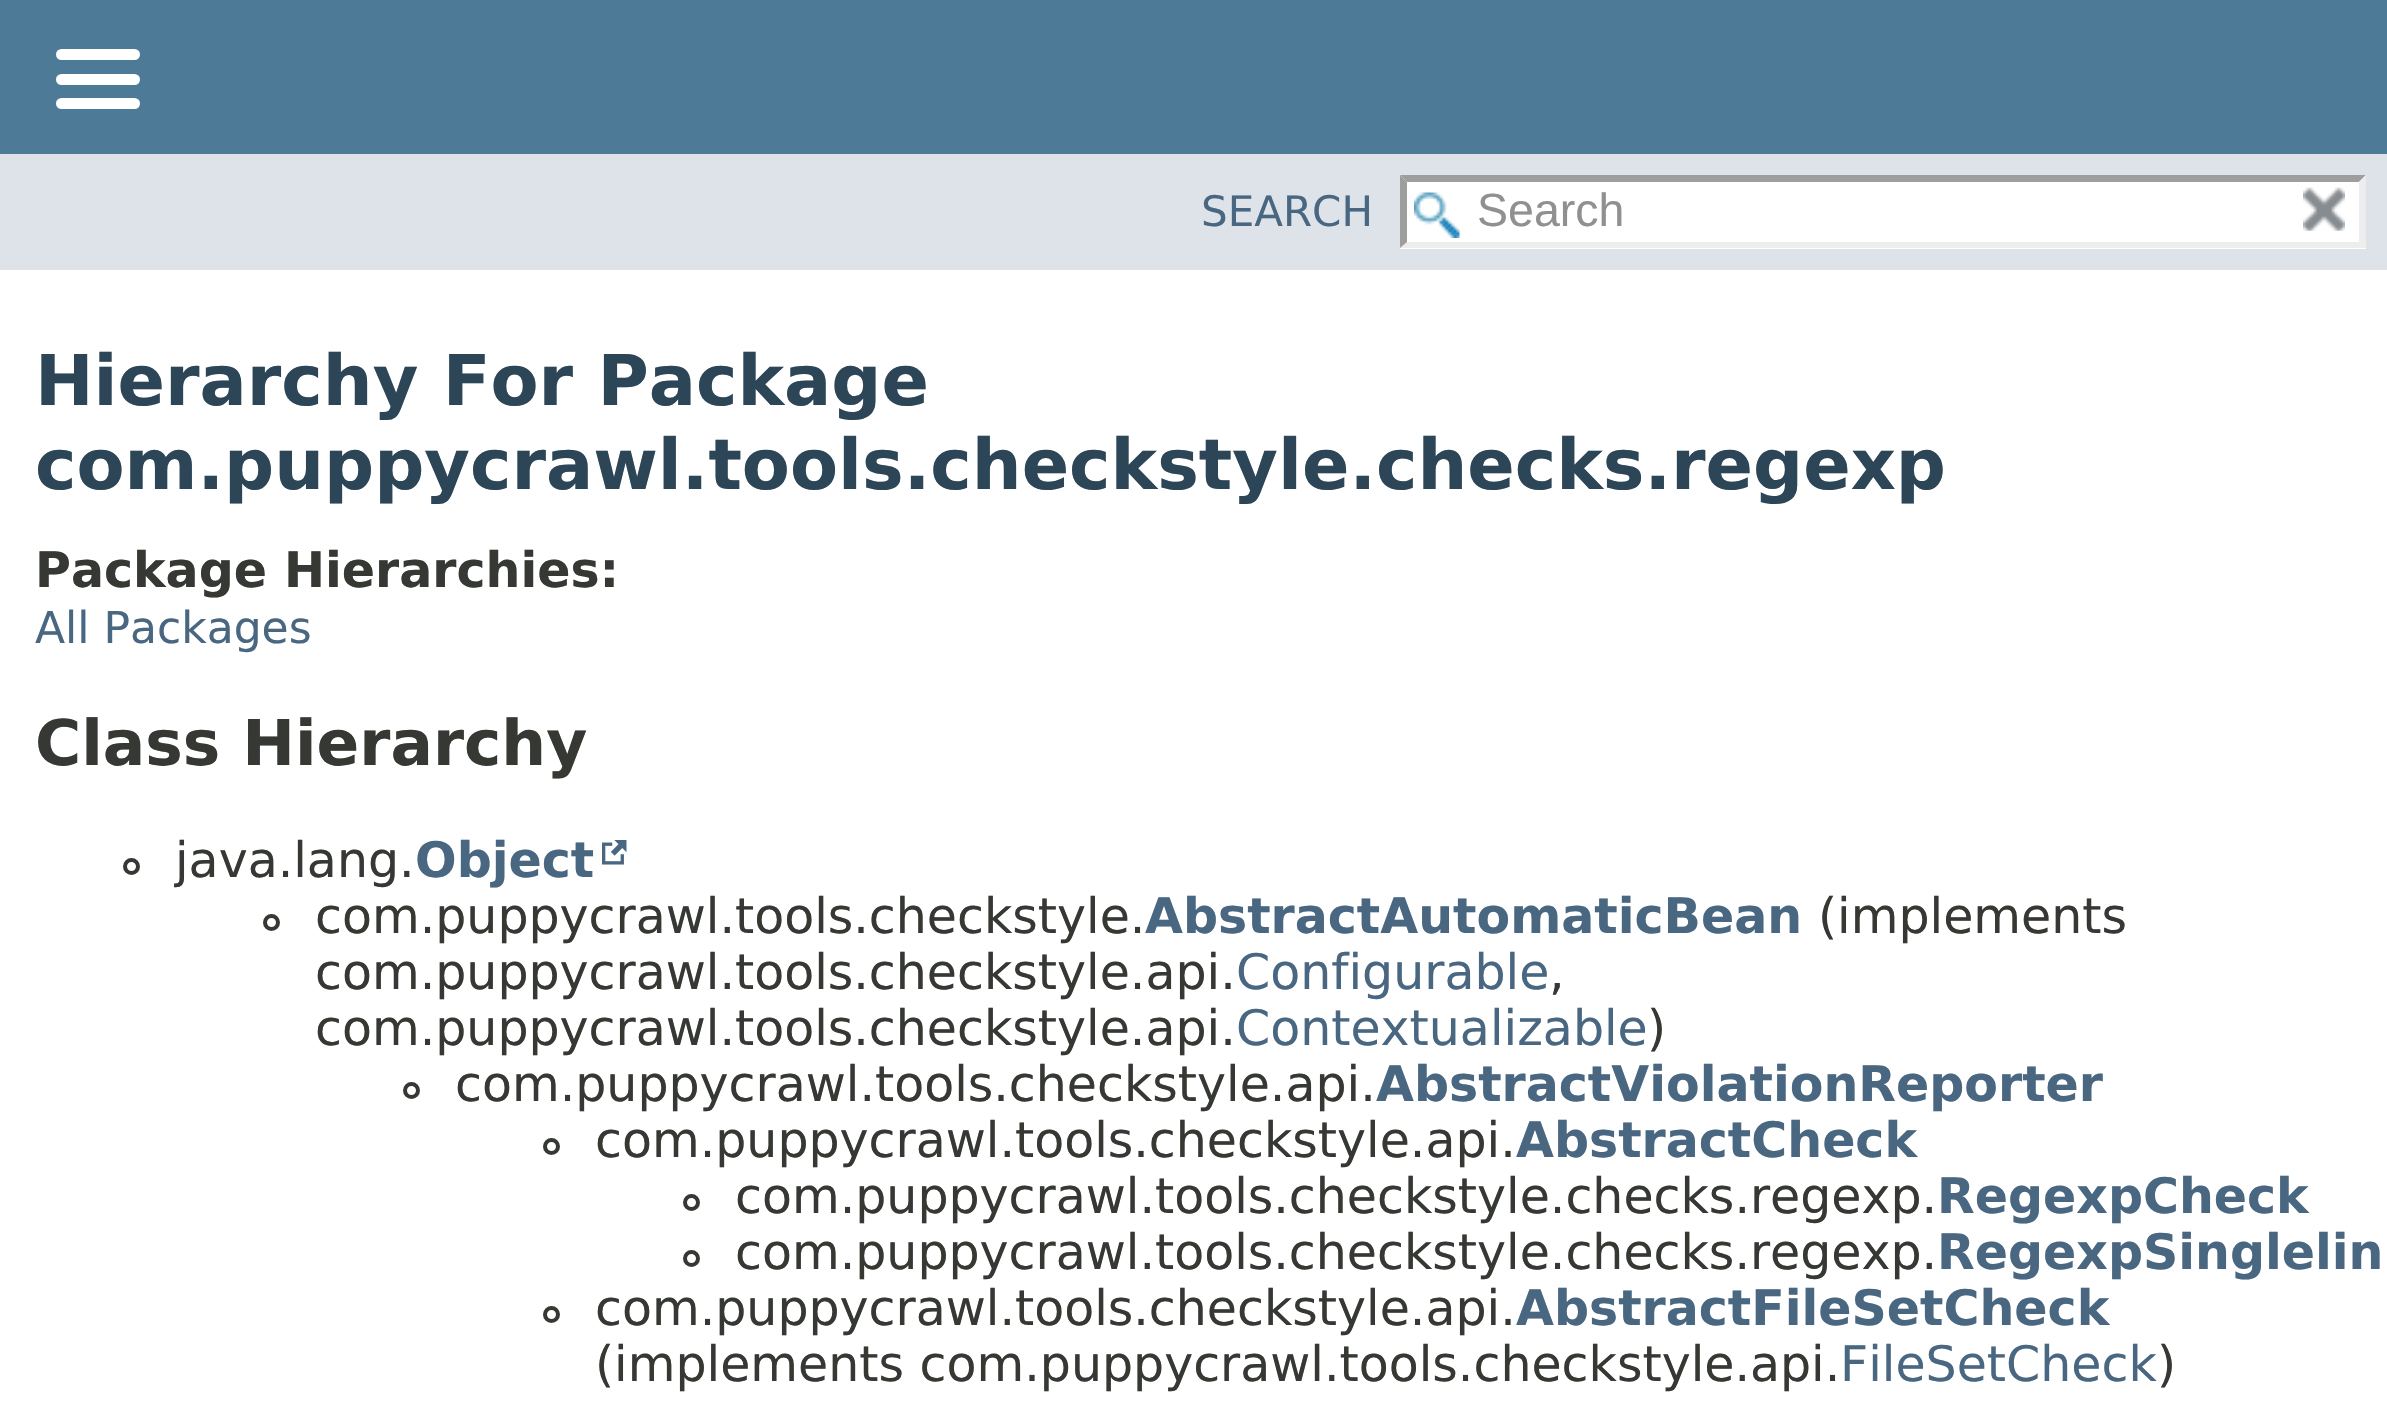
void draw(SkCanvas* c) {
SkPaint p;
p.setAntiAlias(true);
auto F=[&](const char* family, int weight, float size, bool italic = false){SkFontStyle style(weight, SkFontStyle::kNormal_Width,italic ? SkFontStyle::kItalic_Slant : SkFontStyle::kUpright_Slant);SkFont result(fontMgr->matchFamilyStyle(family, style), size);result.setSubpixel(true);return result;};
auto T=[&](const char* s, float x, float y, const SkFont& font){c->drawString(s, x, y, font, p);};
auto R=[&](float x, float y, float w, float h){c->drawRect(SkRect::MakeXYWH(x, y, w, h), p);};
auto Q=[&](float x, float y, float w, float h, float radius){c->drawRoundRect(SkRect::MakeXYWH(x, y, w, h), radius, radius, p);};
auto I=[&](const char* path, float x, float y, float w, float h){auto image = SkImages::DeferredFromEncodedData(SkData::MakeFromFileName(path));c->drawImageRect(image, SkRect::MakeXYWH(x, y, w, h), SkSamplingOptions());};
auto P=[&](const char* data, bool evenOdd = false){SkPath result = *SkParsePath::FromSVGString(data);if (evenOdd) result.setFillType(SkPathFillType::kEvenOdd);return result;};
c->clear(0xffffffff);
p.setColor(0xff4d7a97);
R(0,0,2387,154);
p.setColor(0xffffffff);
Q(56,49,84,11,5.5);
Q(56,74,84,11,5.5);
Q(56,98,84,11,5.5);
p.setColor(0xffdee3e9);
R(0,154,2387,116);
auto f1 = F("DejaVu Sans",400,42);
p.setColor(0xff4a6782);
T("SEARCH",1201,226,f1);
p.setColor(0xffffffff);
R(1400,175,966,74);
I("1.png",1414,192,46,46);
p.setColor(0xff9e9e9e);
c->drawPath(P("M1400 175h966l-7 7h-952z"),p);
p.setColor(0xffededed);
c->drawPath(P("M2366 175v73l-7-6v-60z"),p);
c->drawPath(P("M2366 248h-966l7-6h952z"),p);
p.setColor(0xff9e9e9e);
c->drawPath(P("M1400 248v-73l7 7v60z"),p);
auto f2 = F("Liberation Sans",400,46.5);
p.setColor(0xff909090);
T("Search",1477,226,f2);
I("2.png",2303,187,42,44);
auto f3 = F("DejaVu Sans",700,70);
p.setColor(0xff2c4557);
T("Hierarchy For Package",35,405,f3);
T("com.puppycrawl.tools.checkstyle.checks.regexp",35,489,f3);
auto f4 = F("DejaVu Sans",700,49);
p.setColor(0xff353833);
T("Package Hierarchies:",35,587,f4);
auto f5 = F("DejaVu Sans",400,44);
p.setColor(0xff4a6782);
T("All Packages",35,643,f5);
auto f6 = F("DejaVu Sans",700,63);
p.setColor(0xff353833);
T("Class Hierarchy",35,765,f6);
p.setStroke(true);
p.setStrokeWidth(4);
c->drawCircle(131.5,866.5,6.5,p);
auto f7 = F("DejaVu Sans",400,49);
p.setStroke(false);
T("java.lang.",175,877,f7);
p.setColor(0xff4a6782);
T("Object",415,877,f4);
I("3.png",602,840,25,25);
p.setStroke(true);
p.setColor(0xff353833);
c->drawCircle(271.5,922.5,6.5,p);
p.setStroke(false);
T("com.puppycrawl.tools.checkstyle.",315,933,f7);
p.setColor(0xff4a6782);
T("AbstractAutomaticBean",1145,933,f4);
p.setColor(0xff353833);
T("(implements",1818,933,f7);
T("com.puppycrawl.tools.checkstyle.api.",315,989,f7);
p.setColor(0xff4a6782);
T("Configurable",1236,989,f7);
p.setColor(0xff353833);
T(",",1549,989,f7);
T("com.puppycrawl.tools.checkstyle.api.",315,1045,f7);
p.setColor(0xff4a6782);
T("Contextualizable",1236,1045,f7);
p.setColor(0xff353833);
T(")",1647,1045,f7);
p.setStroke(true);
c->drawCircle(411.5,1090.5,6.5,p);
p.setStroke(false);
T("com.puppycrawl.tools.checkstyle.api.",455,1101,f7);
p.setColor(0xff4a6782);
T("AbstractViolationReporter",1376,1101,f4);
p.setStroke(true);
p.setColor(0xff353833);
c->drawCircle(551.5,1146.5,6.5,p);
p.setStroke(false);
T("com.puppycrawl.tools.checkstyle.api.",595,1157,f7);
p.setColor(0xff4a6782);
T("AbstractCheck",1516,1157,f4);
p.setStroke(true);
p.setColor(0xff353833);
c->drawCircle(691.5,1202.5,6.5,p);
p.setStroke(false);
T("com.puppycrawl.tools.checkstyle.checks.regexp.",735,1213,f7);
p.setColor(0xff4a6782);
T("RegexpCheck",1937,1213,f4);
p.setStroke(true);
p.setColor(0xff353833);
c->drawCircle(691.5,1258.5,6.5,p);
p.setStroke(false);
T("com.puppycrawl.tools.checkstyle.checks.regexp.",735,1269,f7);
p.setColor(0xff4a6782);
T("RegexpSinglelin",1937,1269,f4);
p.setStroke(true);
p.setColor(0xff353833);
c->drawCircle(551.5,1314.5,6.5,p);
p.setStroke(false);
T("com.puppycrawl.tools.checkstyle.api.",595,1325,f7);
p.setColor(0xff4a6782);
T("AbstractFileSetCheck",1516,1325,f4);
p.setColor(0xff353833);
T("(implements com.puppycrawl.tools.checkstyle.api.",595,1381,f7);
p.setColor(0xff4a6782);
T("FileSetCheck",1840,1381,f7);
p.setColor(0xff353833);
T(")",2157,1381,f7);
}
